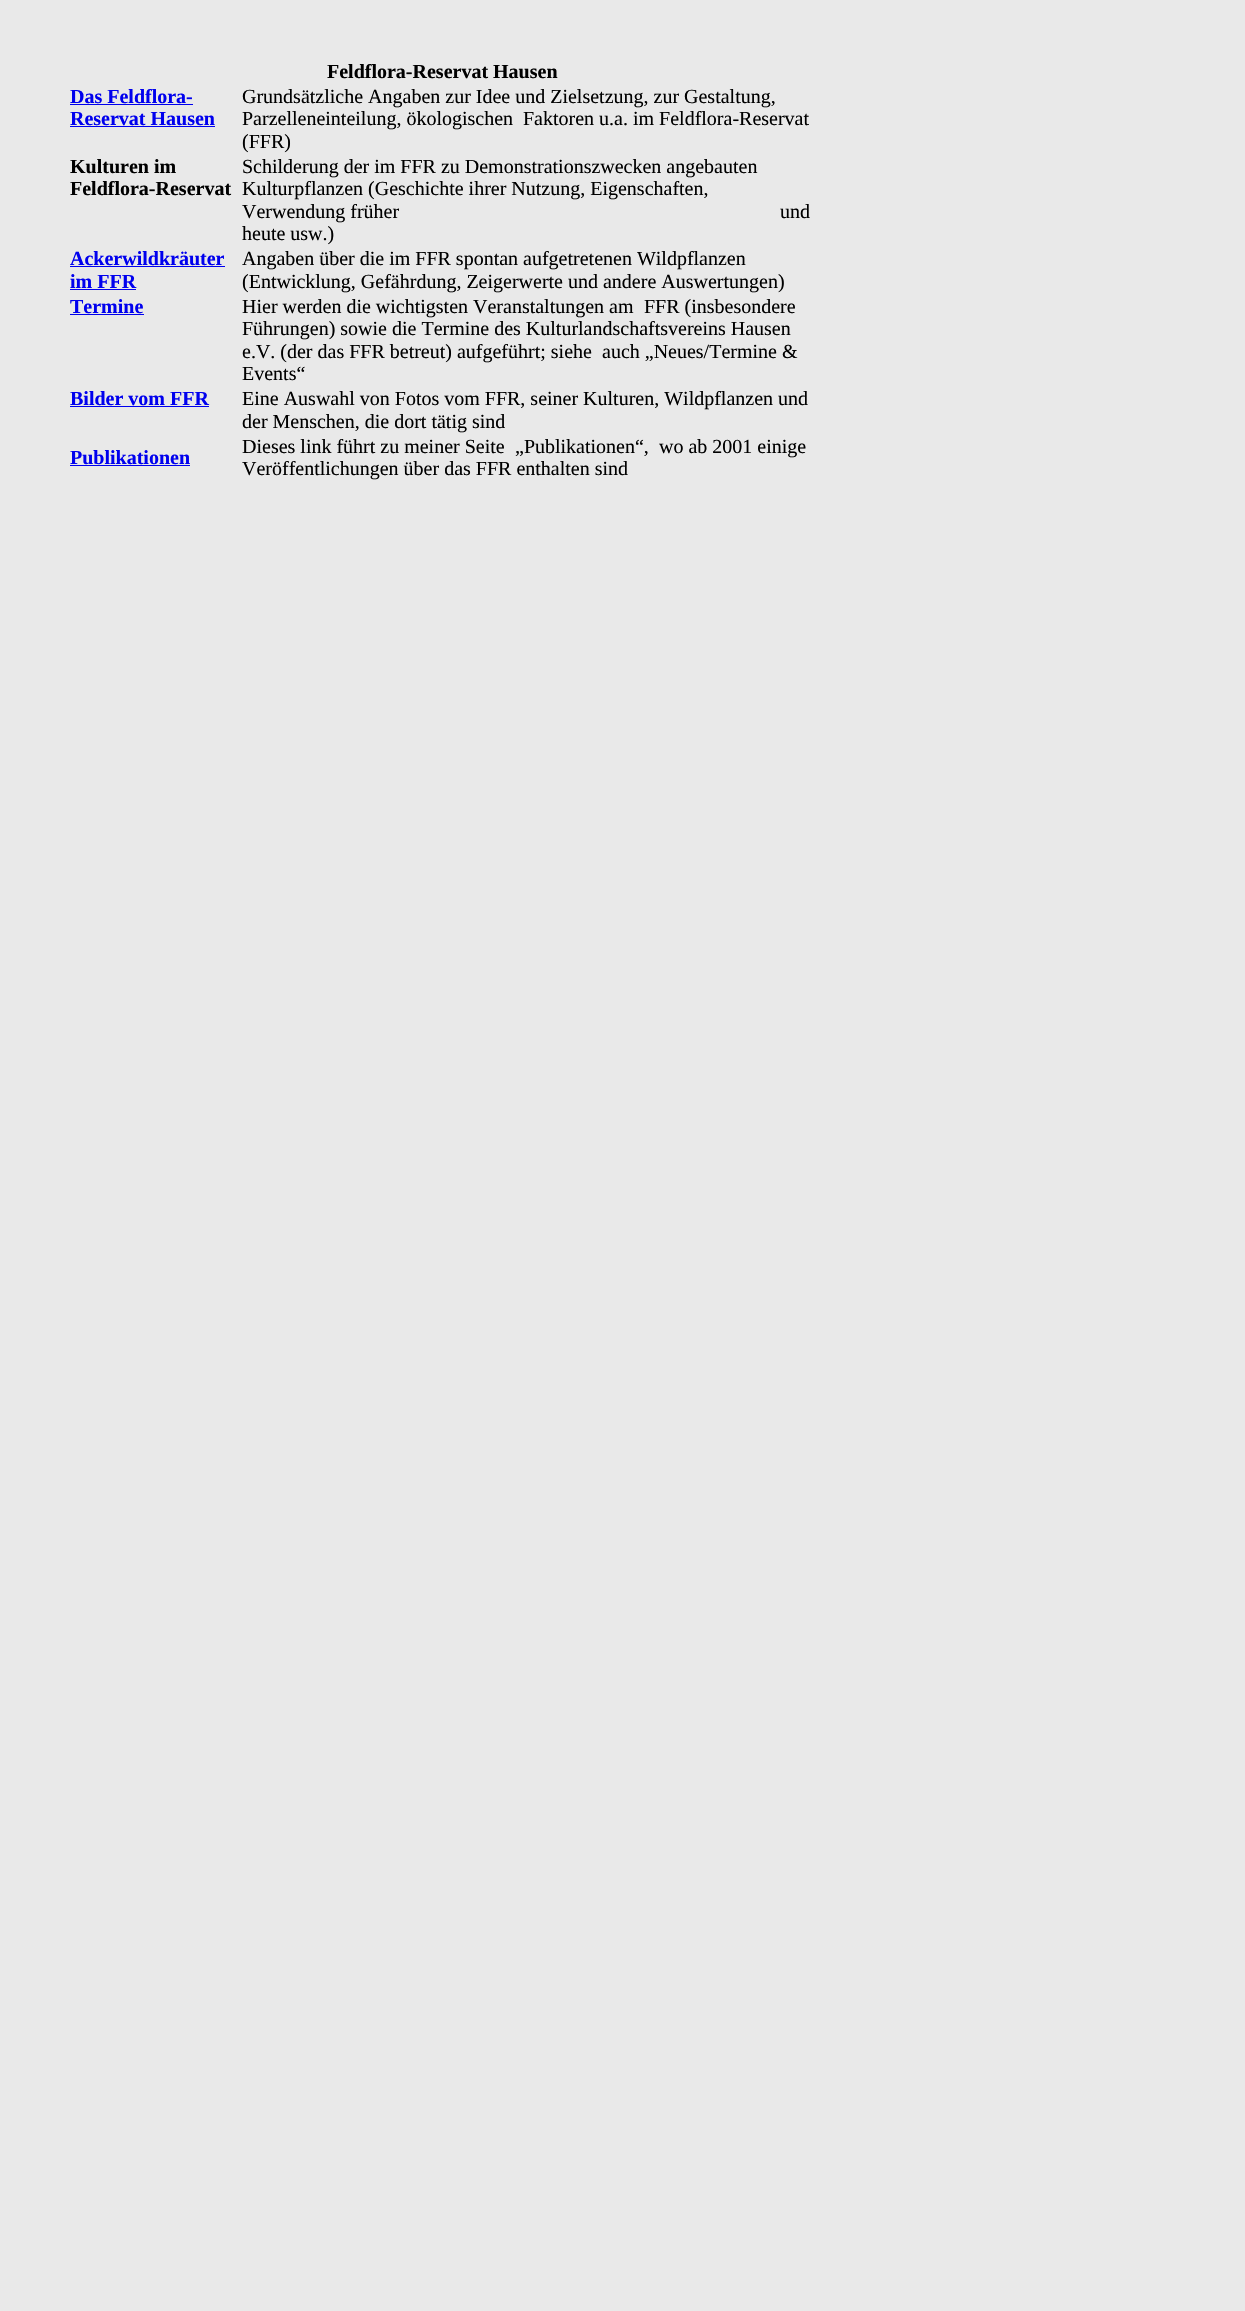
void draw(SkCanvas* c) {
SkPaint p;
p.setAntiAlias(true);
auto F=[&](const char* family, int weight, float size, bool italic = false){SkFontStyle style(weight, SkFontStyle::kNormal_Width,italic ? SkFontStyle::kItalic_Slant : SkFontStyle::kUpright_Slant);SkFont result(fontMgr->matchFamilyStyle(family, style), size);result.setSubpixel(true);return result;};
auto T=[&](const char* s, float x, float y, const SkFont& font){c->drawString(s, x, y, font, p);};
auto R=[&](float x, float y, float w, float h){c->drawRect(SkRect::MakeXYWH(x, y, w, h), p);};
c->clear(0xffe9e9e9);
auto f1 = F("Liberation Serif",700,20);
p.setColor(0xff000000);
T("Feldflora-Reservat Hausen",327,78,f1);
p.setColor(0xff0000ee);
T("Das Feldflora-",70,103,f1);
R(70,104,123,1);
T("Reservat Hausen",70,125,f1);
R(70,126,145,1);
auto f2 = F("Liberation Serif",400,20);
p.setColor(0xff000000);
T("Grundsätzliche Angaben zur Idee und Zielsetzung, zur Gestaltung,",242,103,f2);
T("Parzelleneinteilung, ökologischen",242,125,f2);
T("Faktoren u.a. im Feldflora-Reservat",523,125,f2);
T("(FFR)",242,148,f2);
T("Kulturen im",70,173,f1);
T("Feldflora-Reservat",70,195,f1);
T("Schilderung der im FFR zu Demonstrationszwecken angebauten",242,173,f2);
T("Kulturpflanzen (Geschichte ihrer Nutzung, Eigenschaften,",242,195,f2);
T("Verwendung früher",242,218,f2);
T("und",780,218,f2);
T("heute usw.)",242,240,f2);
p.setColor(0xff0000ee);
T("Ackerwildkräuter",70,265,f1);
R(70,266,155,1);
T("im FFR",70,288,f1);
R(70,289,66,1);
p.setColor(0xff000000);
T("Angaben über die im FFR spontan aufgetretenen Wildpflanzen",242,265,f2);
T("(Entwicklung, Gefährdung, Zeigerwerte und andere Auswertungen)",242,288,f2);
p.setColor(0xff0000ee);
T("Termine",70,313,f1);
R(70,314,74,1);
p.setColor(0xff000000);
T("Hier werden die wichtigsten Veranstaltungen am",242,313,f2);
T("FFR (insbesondere",644,313,f2);
T("Führungen) sowie die Termine des Kulturlandschaftsvereins Hausen",242,335,f2);
T("e.V. (der das FFR betreut) aufgeführt; siehe",242,358,f2);
T("auch „Neues/Termine &",602,358,f2);
T("Events“",242,380,f2);
p.setColor(0xff0000ee);
T("Bilder vom FFR",70,405,f1);
R(70,406,139,1);
p.setColor(0xff000000);
T("Eine Auswahl von Fotos vom FFR, seiner Kulturen, Wildpflanzen und",242,405,f2);
T("der Menschen, die dort tätig sind",242,428,f2);
p.setColor(0xff0000ee);
T("Publikationen",70,464,f1);
R(70,465,120,1);
p.setColor(0xff000000);
T("Dieses link führt zu meiner Seite",242,453,f2);
T("„Publikationen“,",515,453,f2);
T("wo ab 2001 einige",659,453,f2);
T("Veröffentlichungen über das FFR enthalten sind",242,475,f2);
}
